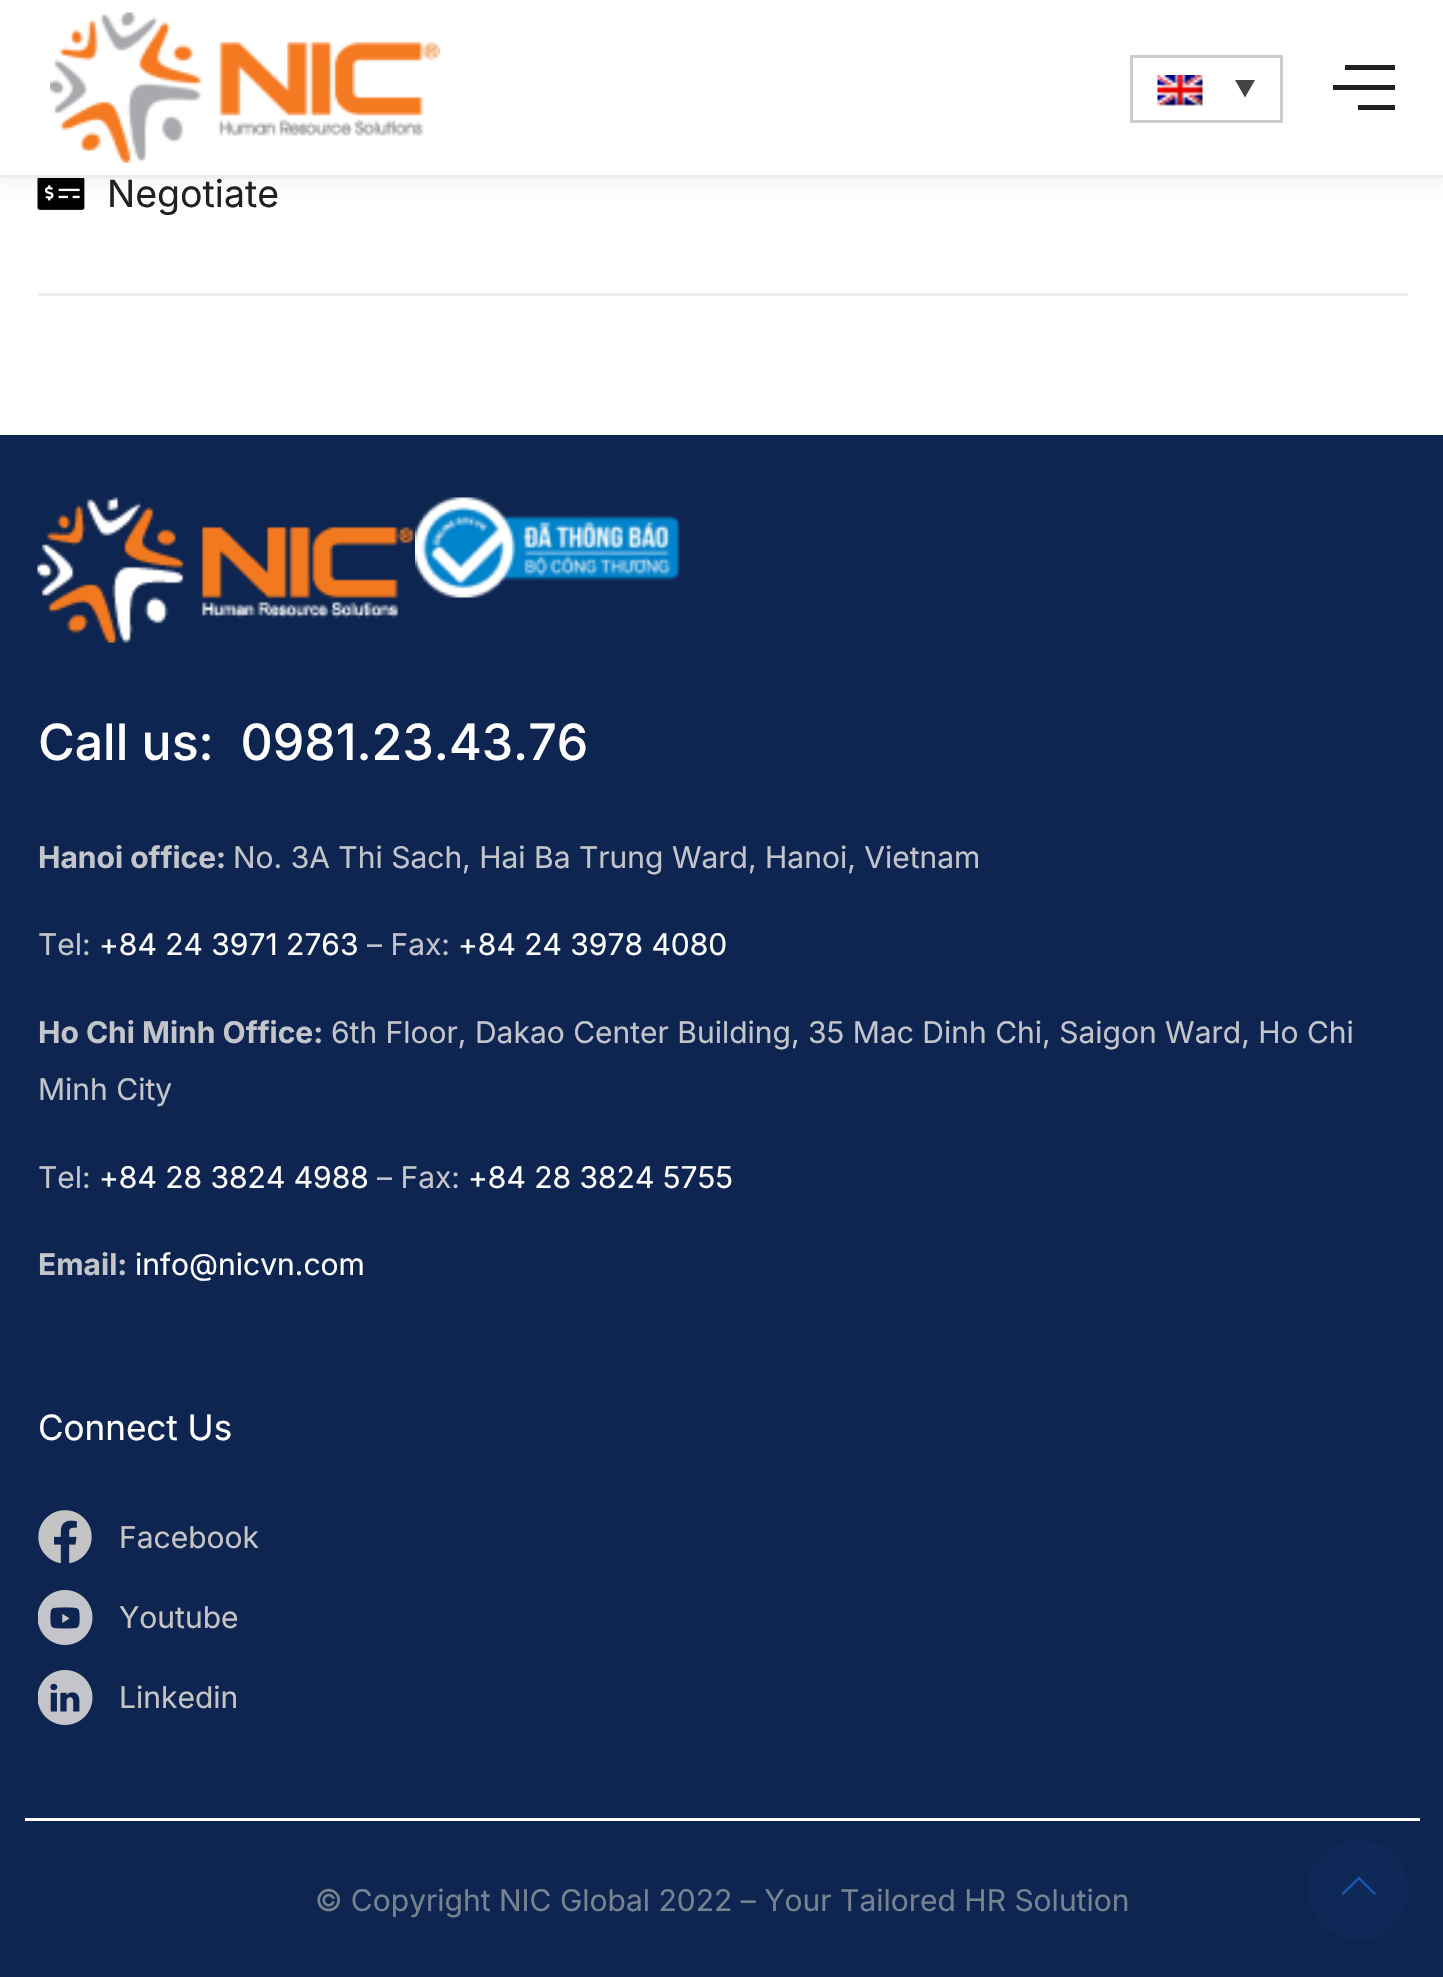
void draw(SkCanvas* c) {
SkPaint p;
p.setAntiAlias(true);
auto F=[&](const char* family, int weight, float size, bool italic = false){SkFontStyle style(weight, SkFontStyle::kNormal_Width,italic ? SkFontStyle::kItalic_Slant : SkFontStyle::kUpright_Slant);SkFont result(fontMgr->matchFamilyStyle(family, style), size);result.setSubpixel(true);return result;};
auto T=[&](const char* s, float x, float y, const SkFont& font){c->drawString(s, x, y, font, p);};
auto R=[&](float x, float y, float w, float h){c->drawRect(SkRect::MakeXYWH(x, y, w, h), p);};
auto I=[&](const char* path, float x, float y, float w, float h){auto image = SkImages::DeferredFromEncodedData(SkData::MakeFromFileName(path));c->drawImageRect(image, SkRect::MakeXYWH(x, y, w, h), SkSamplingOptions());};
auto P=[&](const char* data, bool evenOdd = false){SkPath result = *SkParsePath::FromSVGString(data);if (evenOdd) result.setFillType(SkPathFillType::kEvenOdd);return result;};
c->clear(0xffffffff);
I("3.png",37,178,48,32);
p.setColor(0x0d000000);
p.setMaskFilter(SkMaskFilter::MakeBlur(kNormal_SkBlurStyle, 7.5));
c->drawRect(SkRect::MakeXYWH(0,5,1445,178),p);
p.setMaskFilter(nullptr);
p.setColor(0xffffffff);
R(0,0,1443,175);
p.setColor(0xffecedf2);
R(0,175,1443,3);
I("1.png",50,12,390,151);
p.setStroke(true);
p.setStrokeWidth(3);
p.setColor(0xffcdcdcd);
c->drawRect(SkRect::MakeXYWH(1131.5,56.5,150,65),p);
I("2.png",1157,75,46,31);
p.setStroke(false);
p.setColor(0xff444444);
c->drawPath(P("M1235 80h20l-10 17.5z"),p);
p.setColor(0xff202124);
R(1345,65,50,5);
R(1333,85,62,5);
R(1358,105,37,5);
auto f1 = F("Inter",400,37.5);
T("Negotiate",107,207,f1);
p.setColor(0xffeeeeee);
R(38,293,1370,3);
p.setColor(0xff0d2550);
R(0,435,1443,1542);
I("4.png",37,497,378,146);
I("5.png",415,497,265,101);
auto f2 = F("Inter",500,50);
p.setColor(0xffffffff);
T("Call us:  0981.23.43.76",38,760,f2);
auto f3 = F("Inter",700,30);
p.setColor(0xffc3c5cb);
T("Hanoi office:",38,868,f3);
auto f4 = F("Inter",400,30);
T("No. 3A Thi Sach, Hai Ba Trung Ward, Hanoi, Vietnam",233,868,f4);
T("Tel:",38,955,f4);
p.setColor(0xffffffff);
T("+84 24 3971 2763",99,955,f4);
p.setColor(0xffc3c5cb);
T("– Fax:",367,955,f4);
p.setColor(0xffffffff);
T("+84 24 3978 4080",458,955,f4);
p.setColor(0xffc3c5cb);
T("Ho Chi Minh Office:",38,1043,f3);
T("6th Floor, Dakao Center Building, 35 Mac Dinh Chi, Saigon Ward, Ho Chi",331,1043,f4);
T("Minh City",38,1100,f4);
T("Tel:",38,1188,f4);
p.setColor(0xffffffff);
T("+84 28 3824 4988",99,1188,f4);
p.setColor(0xffc3c5cb);
T("– Fax:",377,1188,f4);
p.setColor(0xffffffff);
T("+84 28 3824 5755",468,1188,f4);
p.setColor(0xffc3c5cb);
T("Email:",38,1275,f3);
p.setColor(0xffffffff);
T("info@nicvn.com",135,1275,f4);
auto f5 = F("Inter",400,35);
T("Connect Us",38,1440,f5);
I("6.png",38,1510,54,54);
p.setColor(0xffc6c4c4);
T("Facebook",119,1548,f4);
I("7.png",38,1590,55,55);
T("Youtube",119,1628,f4);
I("8.png",38,1670,55,55);
T("Linkedin",119,1708,f4);
p.setColor(0xffffffff);
R(25,1818,1395,3);
p.setColor(0xff77838f);
T("© Copyright NIC Global 2022 – Your Tailored HR Solution",315,1911,f4);
p.setColor(0xff0e2957);
c->drawCircle(1358,1890,50,p);
p.setColor(0xff175ab8);
c->drawPath(P("M1376 1893.5l-1.5 1.5l-15.5-15.5l-16 15.5l-1.5-1.5l17.5-17z"),p);
}
